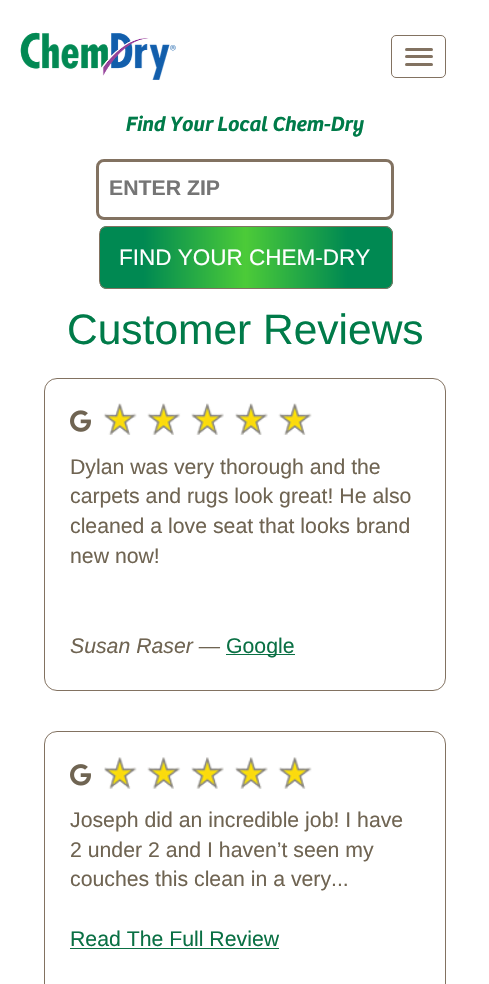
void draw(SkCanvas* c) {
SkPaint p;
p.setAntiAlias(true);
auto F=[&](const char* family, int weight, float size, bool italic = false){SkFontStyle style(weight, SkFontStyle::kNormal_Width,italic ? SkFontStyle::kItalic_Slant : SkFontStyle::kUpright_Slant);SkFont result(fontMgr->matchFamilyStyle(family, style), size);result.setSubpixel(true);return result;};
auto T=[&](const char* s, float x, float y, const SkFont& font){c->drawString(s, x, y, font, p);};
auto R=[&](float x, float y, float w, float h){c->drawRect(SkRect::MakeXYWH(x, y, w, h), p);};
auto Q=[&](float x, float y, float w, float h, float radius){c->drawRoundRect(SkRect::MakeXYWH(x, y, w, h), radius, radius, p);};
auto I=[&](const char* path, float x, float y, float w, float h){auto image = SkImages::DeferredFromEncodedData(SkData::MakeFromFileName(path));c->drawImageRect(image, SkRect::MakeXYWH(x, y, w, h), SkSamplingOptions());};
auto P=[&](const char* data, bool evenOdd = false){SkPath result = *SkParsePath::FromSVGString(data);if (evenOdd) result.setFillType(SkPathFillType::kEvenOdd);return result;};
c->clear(0xffffffff);
I("1.png",20,32,156,48);
p.setStroke(true);
p.setStrokeWidth(1);
p.setColor(0xff827261);
c->drawRoundRect(SkRect::MakeXYWH(391.5,35.5,54,42),4.5,4.5,p);
p.setStroke(false);
Q(405,48,28,3,1.5);
Q(405,55,28,3,1.5);
Q(405,63,28,3,1.5);
auto f1 = F("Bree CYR",600,21.25,true);
p.setColor(0xff007b49);
T("Find Your Local Chem-Dry",126,131,f1);
p.setStroke(true);
p.setStrokeWidth(3);
p.setColor(0xff827261);
c->drawRoundRect(SkRect::MakeXYWH(97.5,160.5,295,58),6.5,6.5,p);
auto f2 = F("Liberation Sans",700,21.25);
p.setStroke(false);
p.setColor(0xff757575);
T("ENTER ZIP",109,195,f2);
c->save();
c->clipPath(P("M107 226h278c4.5 0 8 3.5 8 8v47c0 4.5-3.5 8-8 8h-278c-4.5 0-8-3.5-8-8v-47c0-4.5 3.5-8 8-8z"),true);
{
const SkColor colors[] = {0xff008952,0xff4ccb38,0xff008952};
const float stops[] = {.15,.5,.85};
const SkPoint ends[] = {{100,258}, {391,258}};
p.setShader(SkGradientShader::MakeLinear(ends, colors, stops, 3, SkTileMode::kClamp));
p.setAlpha(255);
}
R(100,226,291,63);
{
const SkColor colors[] = {0xff008952,0xff4ccb38,0xff008952};
const float stops[] = {.15,.5,.85};
const SkPoint ends[] = {{391,258}, {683,258}};
p.setShader(SkGradientShader::MakeLinear(ends, colors, stops, 3, SkTileMode::kClamp));
p.setAlpha(255);
}
R(391,226,2,63);
c->restore();
p.setStroke(true);
p.setStrokeWidth(1);
p.setShader(nullptr);
p.setColor(0xff827261);
c->drawRoundRect(SkRect::MakeXYWH(99.5,226.5,293,62),7.5,7.5,p);
auto f3 = F("Liberation Sans",400,22.5);
p.setStroke(false);
p.setColor(0xffffffff);
T("FIND YOUR CHEM-DRY",119,265,f3);
auto f4 = F("Liberation Sans",400,42.5);
p.setColor(0xff007b49);
T("Customer Reviews",67,344,f4);
p.setStroke(true);
p.setColor(0xff827261);
c->drawRoundRect(SkRect::MakeXYWH(44.5,378.5,401,312),12.5,12.5,p);
I("2.png",70,410,21,22);
I("3.png",103,403,209,32);
I("4.png",104,403,208,32);
auto f5 = F("Liberation Sans",400,21.25);
p.setStroke(false);
p.setColor(0xff6f6452);
T("Dylan was very thorough and the",70,474,f5);
T("carpets and rugs look great! He also",70,503,f5);
T("cleaned a love seat that looks brand",70,533,f5);
T("new now!",70,563,f5);
auto f6 = F("Liberation Sans",400,21.25,true);
T("Susan Raser —",70,653,f6);
p.setColor(0xff0a7044);
R(226,654,69,1);
T("Google",226,653,f5);
p.setStroke(true);
p.setColor(0xff827261);
c->drawRoundRect(SkRect::MakeXYWH(44.5,731.5,401,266),12.5,12.5,p);
I("5.png",70,764,21,22);
I("6.png",104,757,208,32);
I("7.png",104,757,208,32);
p.setStroke(false);
p.setColor(0xff6f6452);
T("Joseph did an incredible job! I have",70,827,f5);
T("2 under 2 and I haven’t seen my",70,857,f5);
T("couches this clean in a very...",70,886,f5);
p.setColor(0xff0a7044);
T("Read The Full Review",70,946,f5);
R(70,948,209,1);
}
